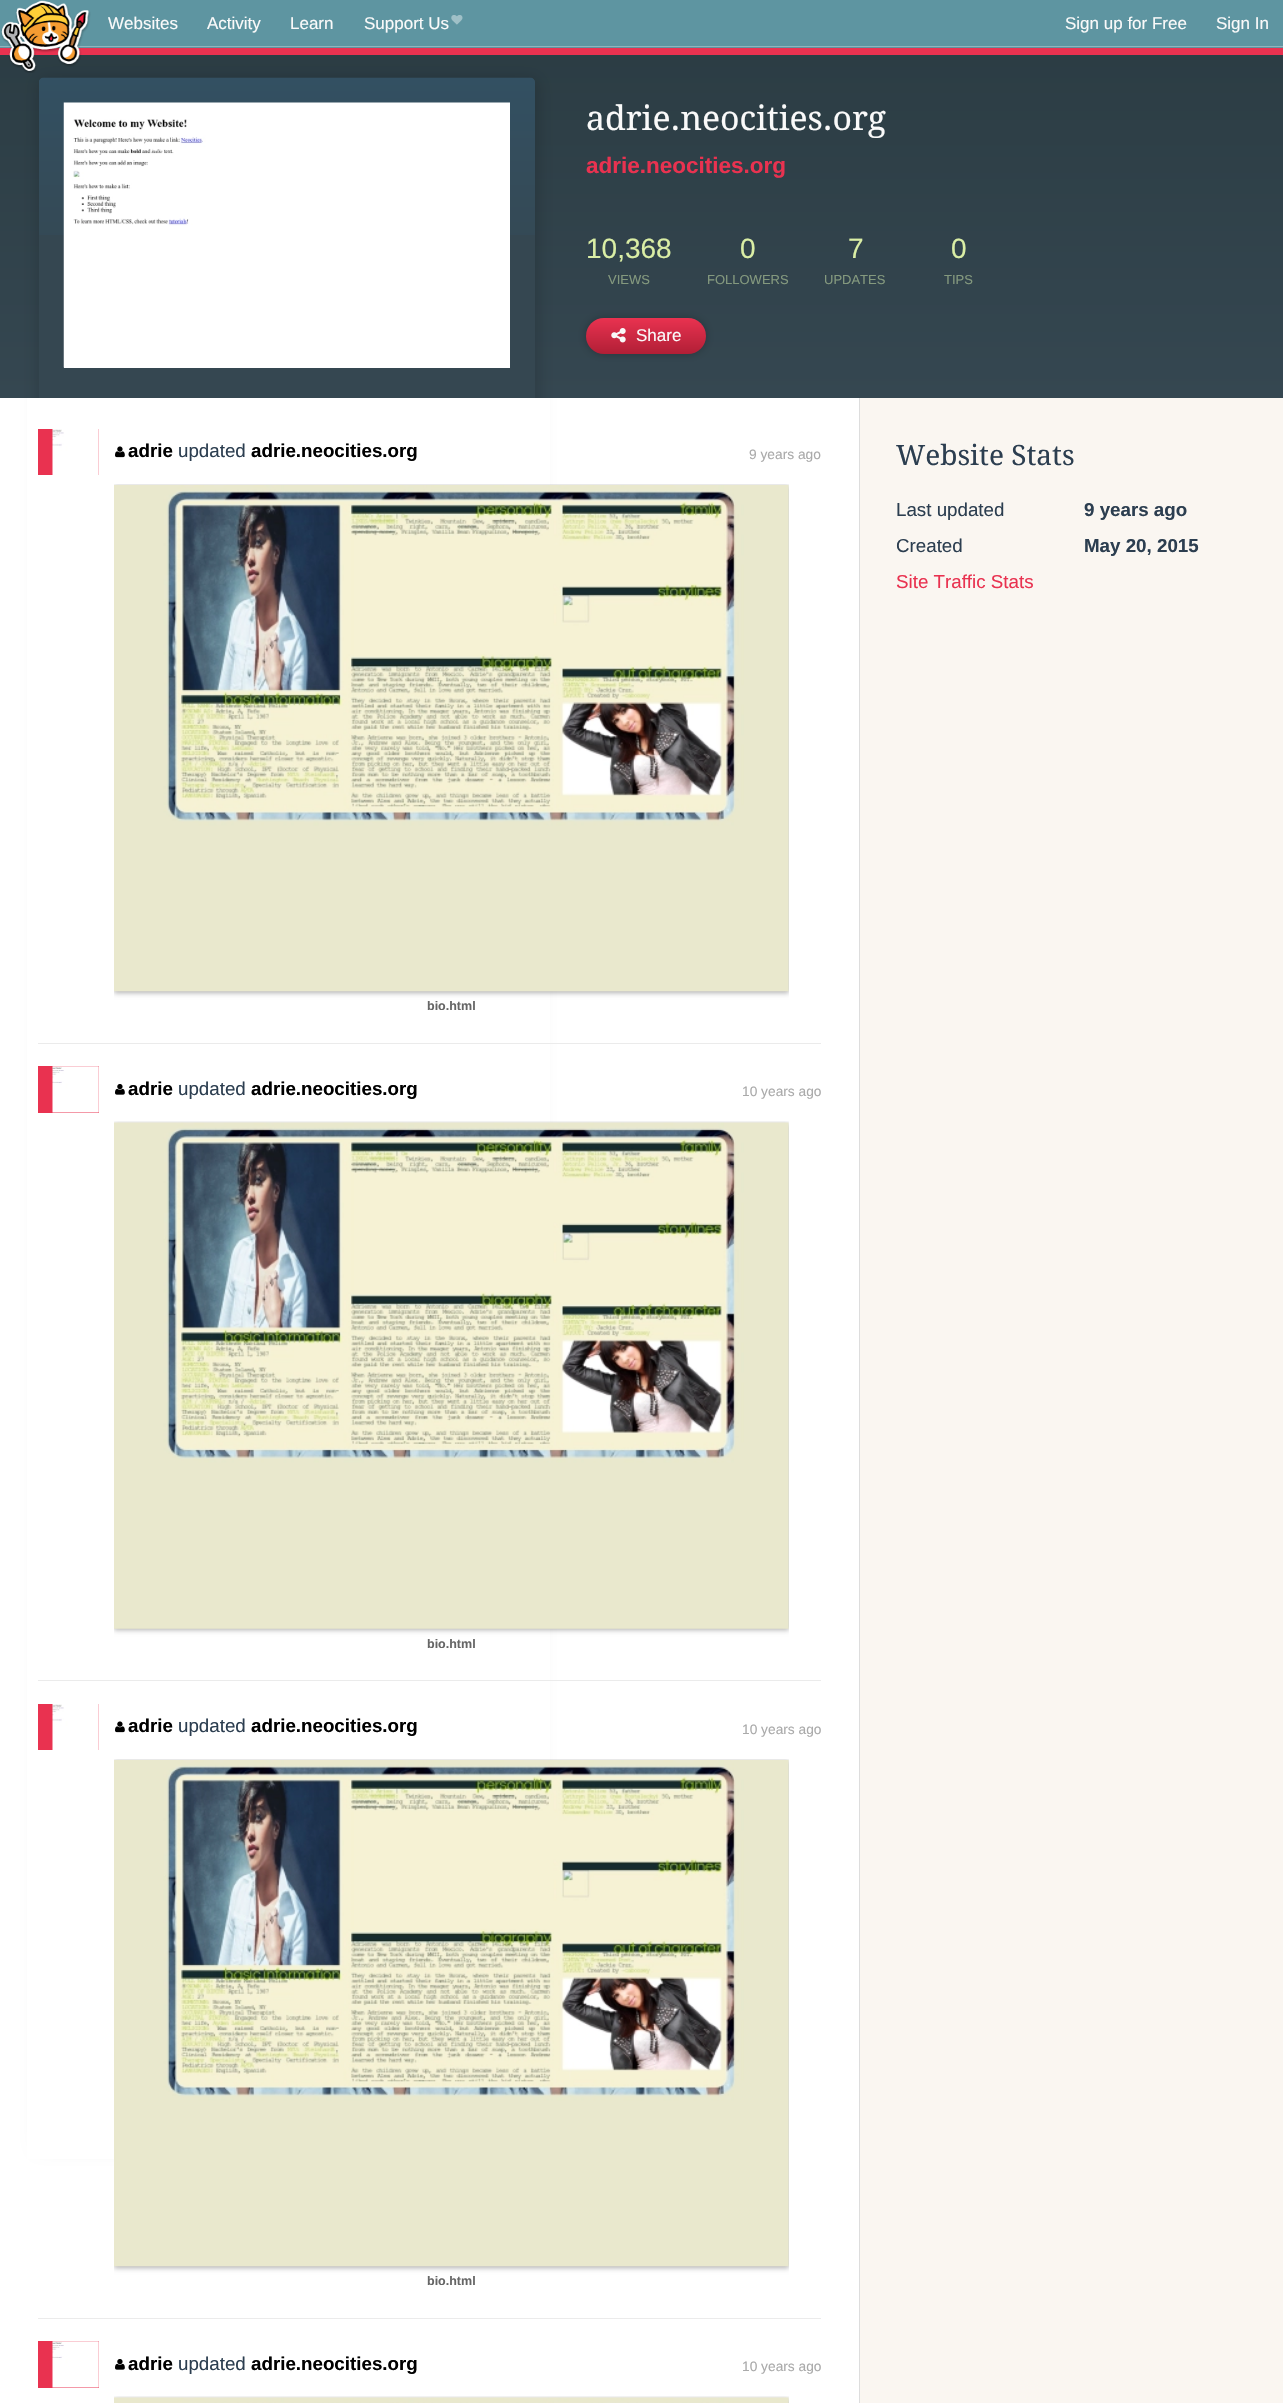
void draw(SkCanvas* c) {
SkPaint p;
p.setAntiAlias(true);
auto F=[&](const char* family, int weight, float size, bool italic = false){SkFontStyle style(weight, SkFontStyle::kNormal_Width,italic ? SkFontStyle::kItalic_Slant : SkFontStyle::kUpright_Slant);SkFont result(fontMgr->matchFamilyStyle(family, style), size);result.setSubpixel(true);return result;};
auto T=[&](const char* s, float x, float y, const SkFont& font){c->drawString(s, x, y, font, p);};
auto R=[&](float x, float y, float w, float h){c->drawRect(SkRect::MakeXYWH(x, y, w, h), p);};
auto Q=[&](float x, float y, float w, float h, float radius){c->drawRoundRect(SkRect::MakeXYWH(x, y, w, h), radius, radius, p);};
auto I=[&](const char* path, float x, float y, float w, float h){auto image = SkImages::DeferredFromEncodedData(SkData::MakeFromFileName(path));c->drawImageRect(image, SkRect::MakeXYWH(x, y, w, h), SkSamplingOptions());};
auto P=[&](const char* data, bool evenOdd = false){SkPath result = *SkParsePath::FromSVGString(data);if (evenOdd) result.setFillType(SkPathFillType::kEvenOdd);return result;};
c->clear(0xffffffff);
{
const SkColor colors[] = {0xff2b3c43,0xff354751};
const float stops[] = {0,1};
const SkPoint ends[] = {{642,27}, {642,398}};
p.setShader(SkGradientShader::MakeLinear(ends, colors, stops, 2, SkTileMode::kClamp));
p.setAlpha(255);
}
R(0,55,1283,343);
p.setShader(nullptr);
p.setColor(0x26000000);
p.setMaskFilter(SkMaskFilter::MakeBlur(kNormal_SkBlurStyle, 7.5));
c->drawRoundRect(SkRect::MakeXYWH(38,78,501,2070),8,8,p);
p.setMaskFilter(nullptr);
p.setColor(0xffe93250);
R(0,48,1283,7);
p.setColor(0xff5e95a1);
R(0,0,1283,48);
p.setColor(0xff92b4bd);
R(0,46,1283,1);
I("1.png",1,0,90,73);
auto f1 = F("Liberation Sans",400,17);
p.setColor(0xfffafafa);
T("Websites",108,29,f1);
T("Activity",207,29,f1);
T("Learn",290,29,f1);
T("Support Us",364,29,f1);
I("2.png",451,15,12,10);
T("Sign up for Free",1065,29,f1);
T("Sign In",1216,29,f1);
p.setColor(0xff354751);
c->drawPath(P("M44 78h486c3 0 5 2 5 5v315h-496v-315c0-3 2-5 5-5z"),p);
I("3.png",39,77,496,158);
I("4.png",63,102,447,266);
p.setStroke(true);
p.setStrokeWidth(8);
p.setColor(0xffffffff);
c->drawRect(SkRect::MakeXYWH(68,107,438,257),p);
auto f2 = F("Droid Serif",400,33.75);
p.setStroke(false);
p.setColor(0xfffafafa);
T("adrie.neocities.org",586,130,f2);
auto f3 = F("Liberation Sans",700,22.5);
p.setColor(0xffe93250);
T("adrie.neocities.org",586,173,f3);
auto f4 = F("Liberation Sans",400,28);
p.setColor(0xffdaeea5);
T("10,368",586,258,f4);
auto f5 = F("Liberation Sans",400,13);
p.setColor(0xff84997e);
T("VIEWS",608,284,f5);
p.setColor(0xffdaeea5);
T("0",740,258,f4);
p.setColor(0xff84997e);
T("FOLLOWERS",707,284,f5);
p.setColor(0xffdaeea5);
T("7",848,258,f4);
p.setColor(0xff84997e);
T("UPDATES",824,284,f5);
p.setColor(0xffdaeea5);
T("0",951,258,f4);
p.setColor(0xff84997e);
T("TIPS",944,284,f5);
p.setColor(0x40000000);
p.setMaskFilter(SkMaskFilter::MakeBlur(kNormal_SkBlurStyle, 4));
c->drawRoundRect(SkRect::MakeXYWH(586,318,120,36),18,18,p);
p.setMaskFilter(nullptr);
{
const SkColor colors[] = {0xffe93250,0xffb11f36};
const float stops[] = {0,1};
const SkPoint ends[] = {{646,318}, {646,354}};
p.setShader(SkGradientShader::MakeLinear(ends, colors, stops, 2, SkTileMode::kClamp));
p.setAlpha(255);
}
Q(586,318,120,36,18);
I("5.png",611,328,15,15);
p.setShader(nullptr);
p.setColor(0xfffafafa);
T("Share",636,341,f1);
p.setColor(0xfffaf6f1);
R(860,398,423,2005);
p.setColor(0xffdddddd);
R(859,398,1,2005);
p.setColor(0xffffffff);
R(27,398,523,1761);
p.setColor(0xffe93250);
R(38,429,61,46);
I("6.png",52,429,47,46);
I("7.png",115,446,10,12);
auto f6 = F("Liberation Sans",700,18.75);
p.setColor(0xff000000);
T("adrie",128,457,f6);
auto f7 = F("Liberation Sans",400,18.75);
p.setColor(0xff2c3e50);
T("updated",178,457,f7);
p.setColor(0xff000000);
T("adrie.neocities.org",251,457,f6);
auto f8 = F("Liberation Sans",400,13.75);
p.setColor(0xffaaaaaa);
T("9 years ago",749,459,f8);
c->save();
c->clipRect(SkRect::MakeXYWH(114,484,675,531));
p.setColor(0x4d000000);
p.setMaskFilter(SkMaskFilter::MakeBlur(kNormal_SkBlurStyle, 2.5));
c->drawRect(SkRect::MakeXYWH(114,486,675,507),p);
p.setMaskFilter(nullptr);
c->restore();
I("8.png",114,485,675,507);
auto f9 = F("Liberation Sans",700,12.5);
p.setColor(0xff666666);
T("bio.html",427,1010,f9);
p.setColor(0xffebebeb);
R(38,1043,783,1);
p.setColor(0xffe93250);
R(38,1066,61,47);
I("9.png",52,1066,47,47);
I("10.png",115,1084,10,11);
p.setColor(0xff000000);
T("adrie",128,1095,f6);
p.setColor(0xff2c3e50);
T("updated",178,1095,f7);
p.setColor(0xff000000);
T("adrie.neocities.org",251,1095,f6);
p.setColor(0xffaaaaaa);
T("10 years ago",742,1096,f8);
c->save();
c->clipRect(SkRect::MakeXYWH(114,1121,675,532));
p.setColor(0x4d000000);
p.setMaskFilter(SkMaskFilter::MakeBlur(kNormal_SkBlurStyle, 2.5));
c->drawRect(SkRect::MakeXYWH(114,1124,675,506),p);
p.setMaskFilter(nullptr);
c->restore();
I("11.png",114,1122,675,507);
p.setColor(0xff666666);
T("bio.html",427,1648,f9);
p.setColor(0xffebebeb);
R(38,1680,783,1);
p.setColor(0xffe93250);
R(38,1704,61,46);
I("6.png",52,1704,47,46);
I("7.png",115,1721,10,12);
p.setColor(0xff000000);
T("adrie",128,1732,f6);
p.setColor(0xff2c3e50);
T("updated",178,1732,f7);
p.setColor(0xff000000);
T("adrie.neocities.org",251,1732,f6);
p.setColor(0xffaaaaaa);
T("10 years ago",742,1734,f8);
c->save();
c->clipRect(SkRect::MakeXYWH(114,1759,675,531));
p.setColor(0x4d000000);
p.setMaskFilter(SkMaskFilter::MakeBlur(kNormal_SkBlurStyle, 2.5));
c->drawRect(SkRect::MakeXYWH(114,1761,675,507),p);
p.setMaskFilter(nullptr);
c->restore();
I("8.png",114,1760,675,507);
p.setColor(0xff666666);
T("bio.html",427,2285,f9);
p.setColor(0xffebebeb);
R(38,2318,783,1);
p.setColor(0xffe93250);
R(38,2341,61,47);
I("9.png",52,2341,47,47);
I("10.png",115,2359,10,11);
p.setColor(0xff000000);
T("adrie",128,2370,f6);
p.setColor(0xff2c3e50);
T("updated",178,2370,f7);
p.setColor(0xff000000);
T("adrie.neocities.org",251,2370,f6);
p.setColor(0xffaaaaaa);
T("10 years ago",742,2371,f8);
c->save();
c->clipRect(SkRect::MakeXYWH(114,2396,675,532));
p.setColor(0x4d000000);
p.setMaskFilter(SkMaskFilter::MakeBlur(kNormal_SkBlurStyle, 2.5));
c->drawRect(SkRect::MakeXYWH(114,2399,675,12),p);
p.setMaskFilter(nullptr);
c->restore();
I("12.png",114,2397,675,6);
auto f10 = F("Droid Serif",400,28);
p.setColor(0xff2c3e50);
T("Website Stats",896,465,f10);
T("Last updated",896,516,f7);
T("9 years ago",1084,516,f6);
T("Created",896,552,f7);
T("May 20, 2015",1084,552,f6);
p.setColor(0xffe93250);
T("Site Traffic Stats",896,588,f7);
}
